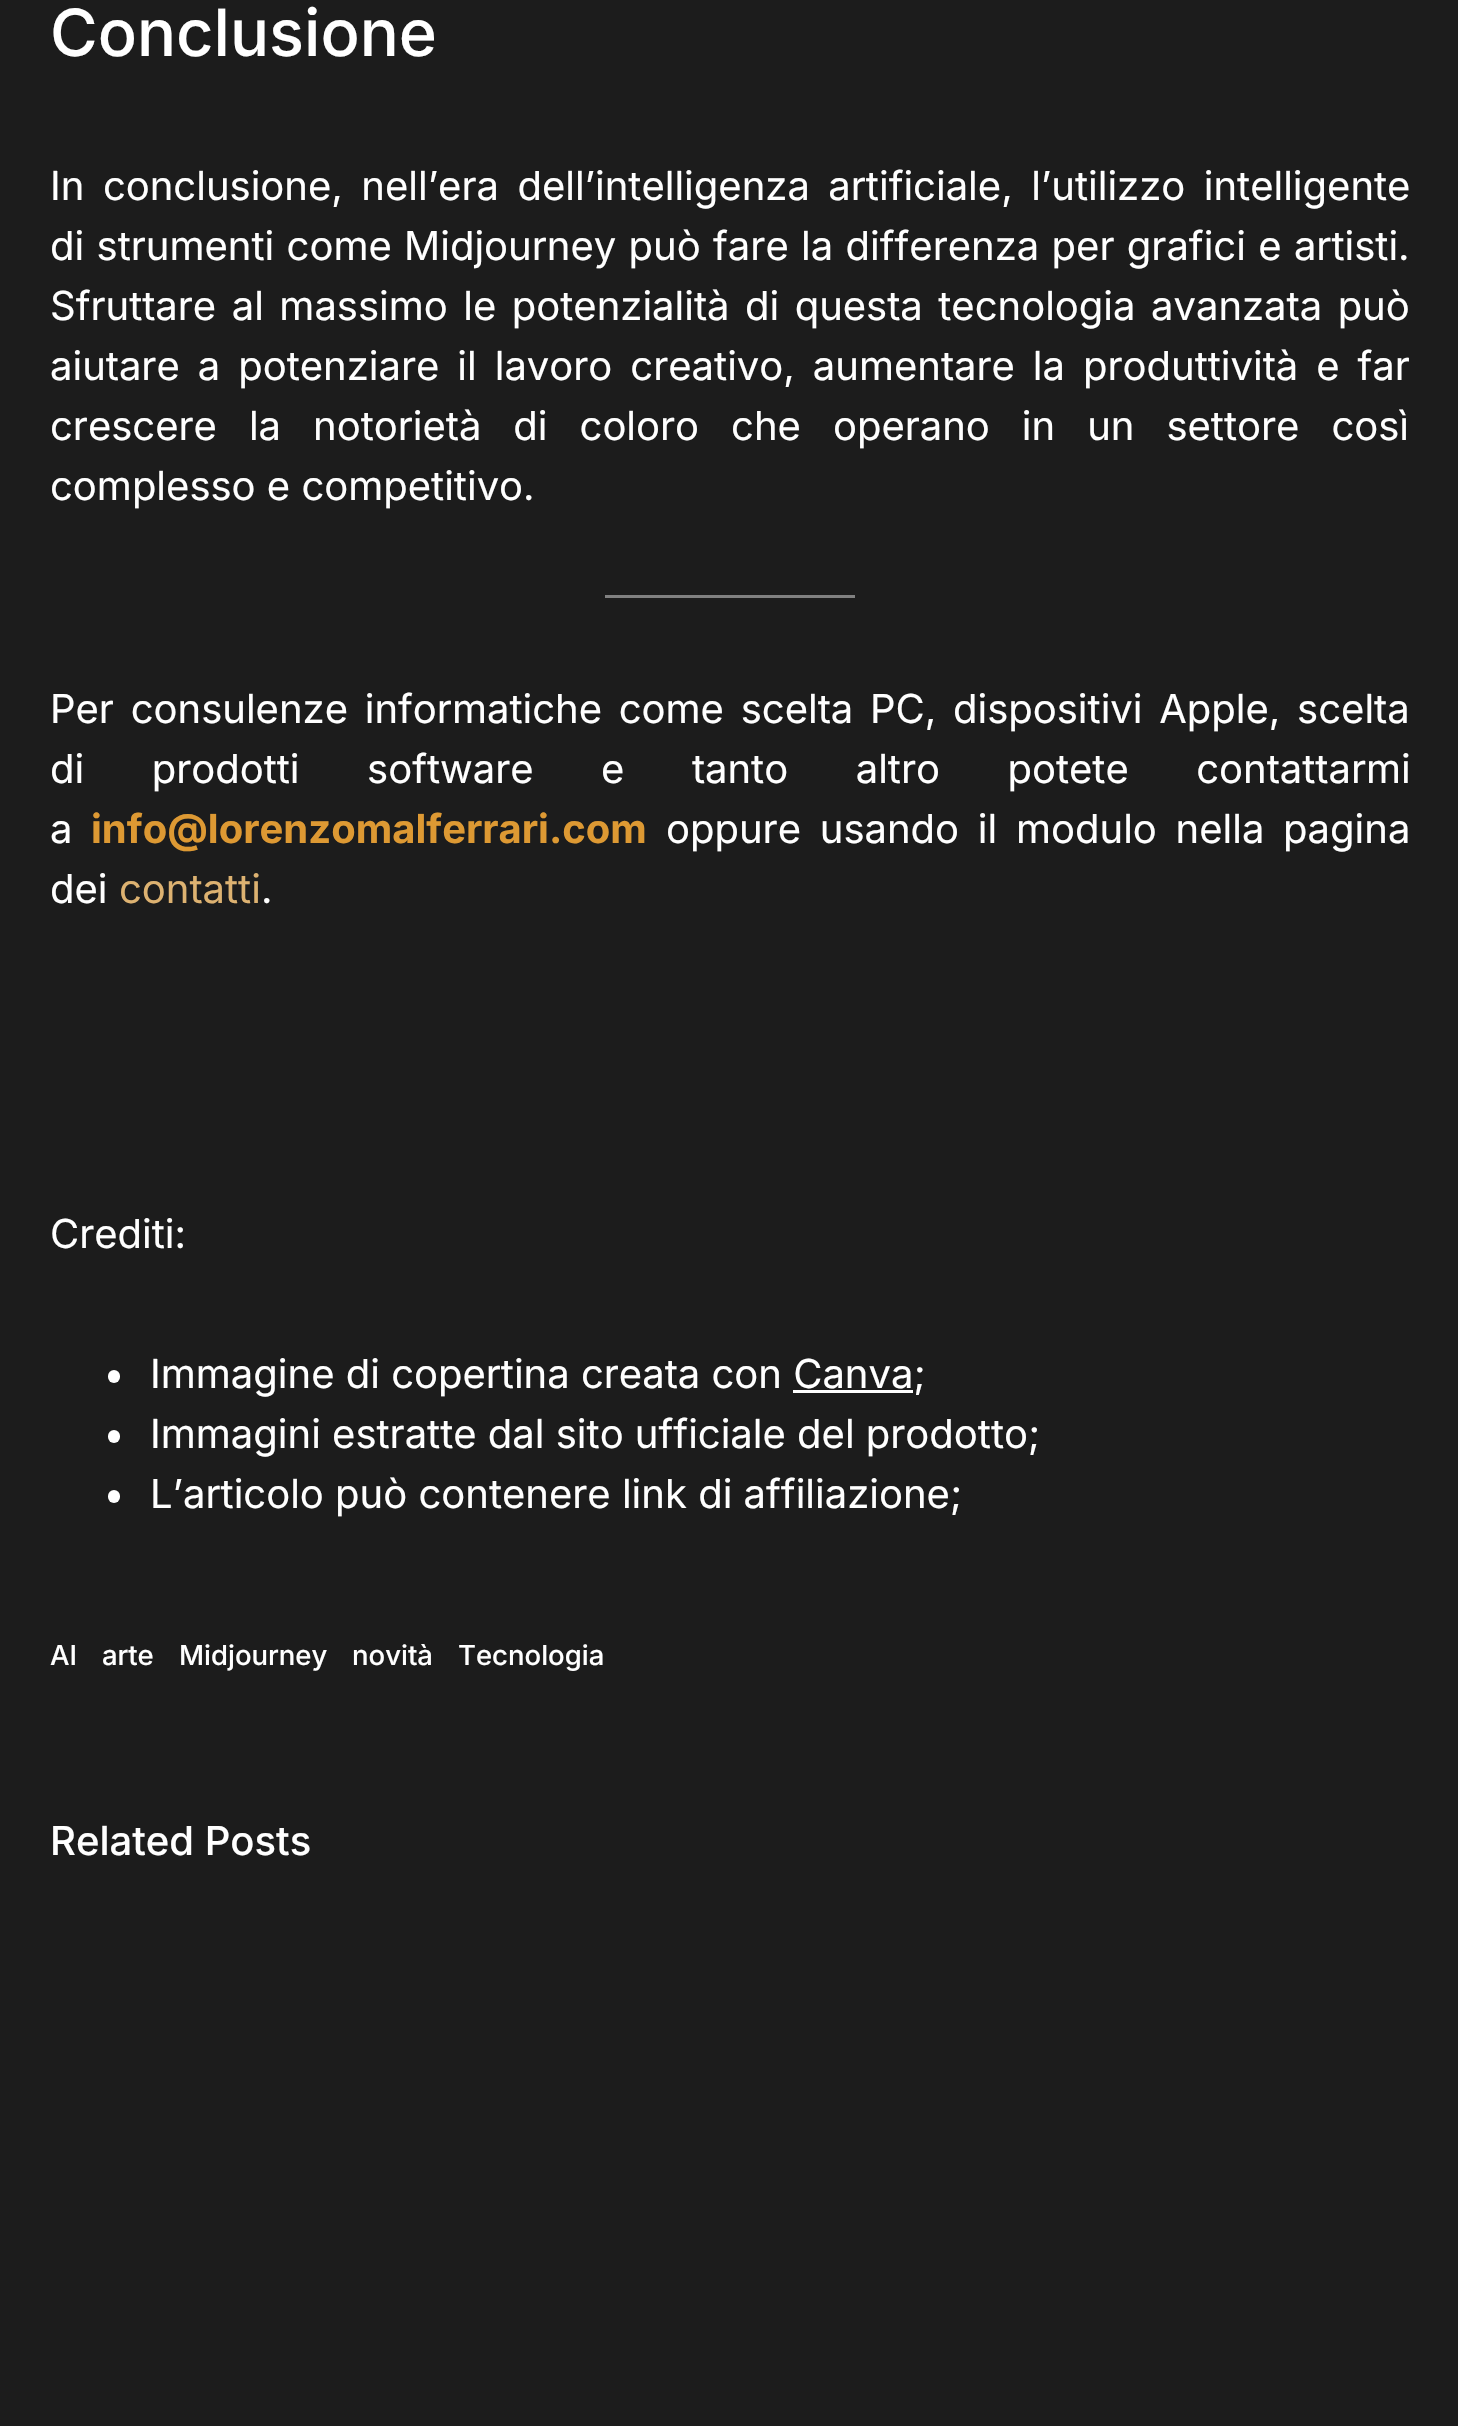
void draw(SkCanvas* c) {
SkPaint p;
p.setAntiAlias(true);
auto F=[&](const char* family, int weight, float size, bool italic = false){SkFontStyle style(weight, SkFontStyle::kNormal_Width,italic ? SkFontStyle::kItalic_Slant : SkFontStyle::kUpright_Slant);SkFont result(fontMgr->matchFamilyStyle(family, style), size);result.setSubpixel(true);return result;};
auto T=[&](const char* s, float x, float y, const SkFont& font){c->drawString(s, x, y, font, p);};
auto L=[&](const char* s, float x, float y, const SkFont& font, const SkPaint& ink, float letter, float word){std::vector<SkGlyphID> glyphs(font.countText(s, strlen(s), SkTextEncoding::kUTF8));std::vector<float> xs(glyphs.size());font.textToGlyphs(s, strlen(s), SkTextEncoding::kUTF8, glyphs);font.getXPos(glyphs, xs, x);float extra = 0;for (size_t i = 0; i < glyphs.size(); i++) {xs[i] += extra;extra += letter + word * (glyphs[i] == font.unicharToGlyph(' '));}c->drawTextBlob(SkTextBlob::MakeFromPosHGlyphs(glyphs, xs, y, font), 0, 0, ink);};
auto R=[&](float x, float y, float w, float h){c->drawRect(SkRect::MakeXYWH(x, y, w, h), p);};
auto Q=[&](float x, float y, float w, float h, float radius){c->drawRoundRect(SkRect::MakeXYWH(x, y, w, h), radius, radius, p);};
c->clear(0xff1c1c1c);
auto f1 = F("Inter",500,65);
p.setColor(0xffffffff);
T("Conclusione",50,56,f1);
auto f2 = F("Inter",400,40);
L("In conclusione, nell’era dell’intelligenza artificiale, l’utilizzo intelligente",50,200,f2,p,0,7.25);
L("di strumenti come Midjourney può fare la differenza per grafici e artisti.",50,260,f2,p,0,1.1);
L("Sfruttare al massimo le potenzialità di questa tecnologia avanzata può",50,320,f2,p,0,4.25);
L("aiutare a potenziare il lavoro creativo, aumentare la produttività e far",50,380,f2,p,0,6.75);
L("crescere la notorietà di coloro che operano in un settore così",50,440,f2,p,0,20.75);
T("complesso e competitivo.",50,500,f2);
p.setColor(0xff808080);
R(605,595,250,3);
p.setColor(0xffffffff);
L("Per consulenze informatiche come scelta PC, dispositivi Apple, scelta",50,723,f2,p,0,5.5);
L("di prodotti software e tanto altro potete contattarmi",50,783,f2,p,0,56.25);
T("a",50,843,f2);
auto f3 = F("Inter",700,40);
p.setColor(0xffdd9933);
T("info@lorenzomalferrari.com",91,843,f3);
p.setColor(0xffffffff);
L("oppure usando il modulo nella pagina",666,843,f2,p,0,7.5);
T("dei",50,903,f2);
p.setColor(0xffddb271);
T("contatti",119,903,f2);
p.setColor(0xffffffff);
T(".",261,903,f2);
T("Crediti:",50,1248,f2);
Q(108,1370,12,13,6);
T("Immagine di copertina creata con Canva;",150,1388,f2);
R(793,1390,120,3);
Q(108,1430,12,13,6);
T("Immagini estratte dal sito ufficiale del prodotto;",150,1448,f2);
Q(108,1490,12,13,6);
T("L’articolo può contenere link di affiliazione;",150,1508,f2);
auto f4 = F("Inter",500,27.5);
T("AI",50,1665,f4);
T("arte",102,1665,f4);
T("Midjourney",179,1665,f4);
T("novità",352,1665,f4);
T("Tecnologia",458,1665,f4);
auto f5 = F("Inter",500,40);
T("Related Posts",50,1855,f5);
}
